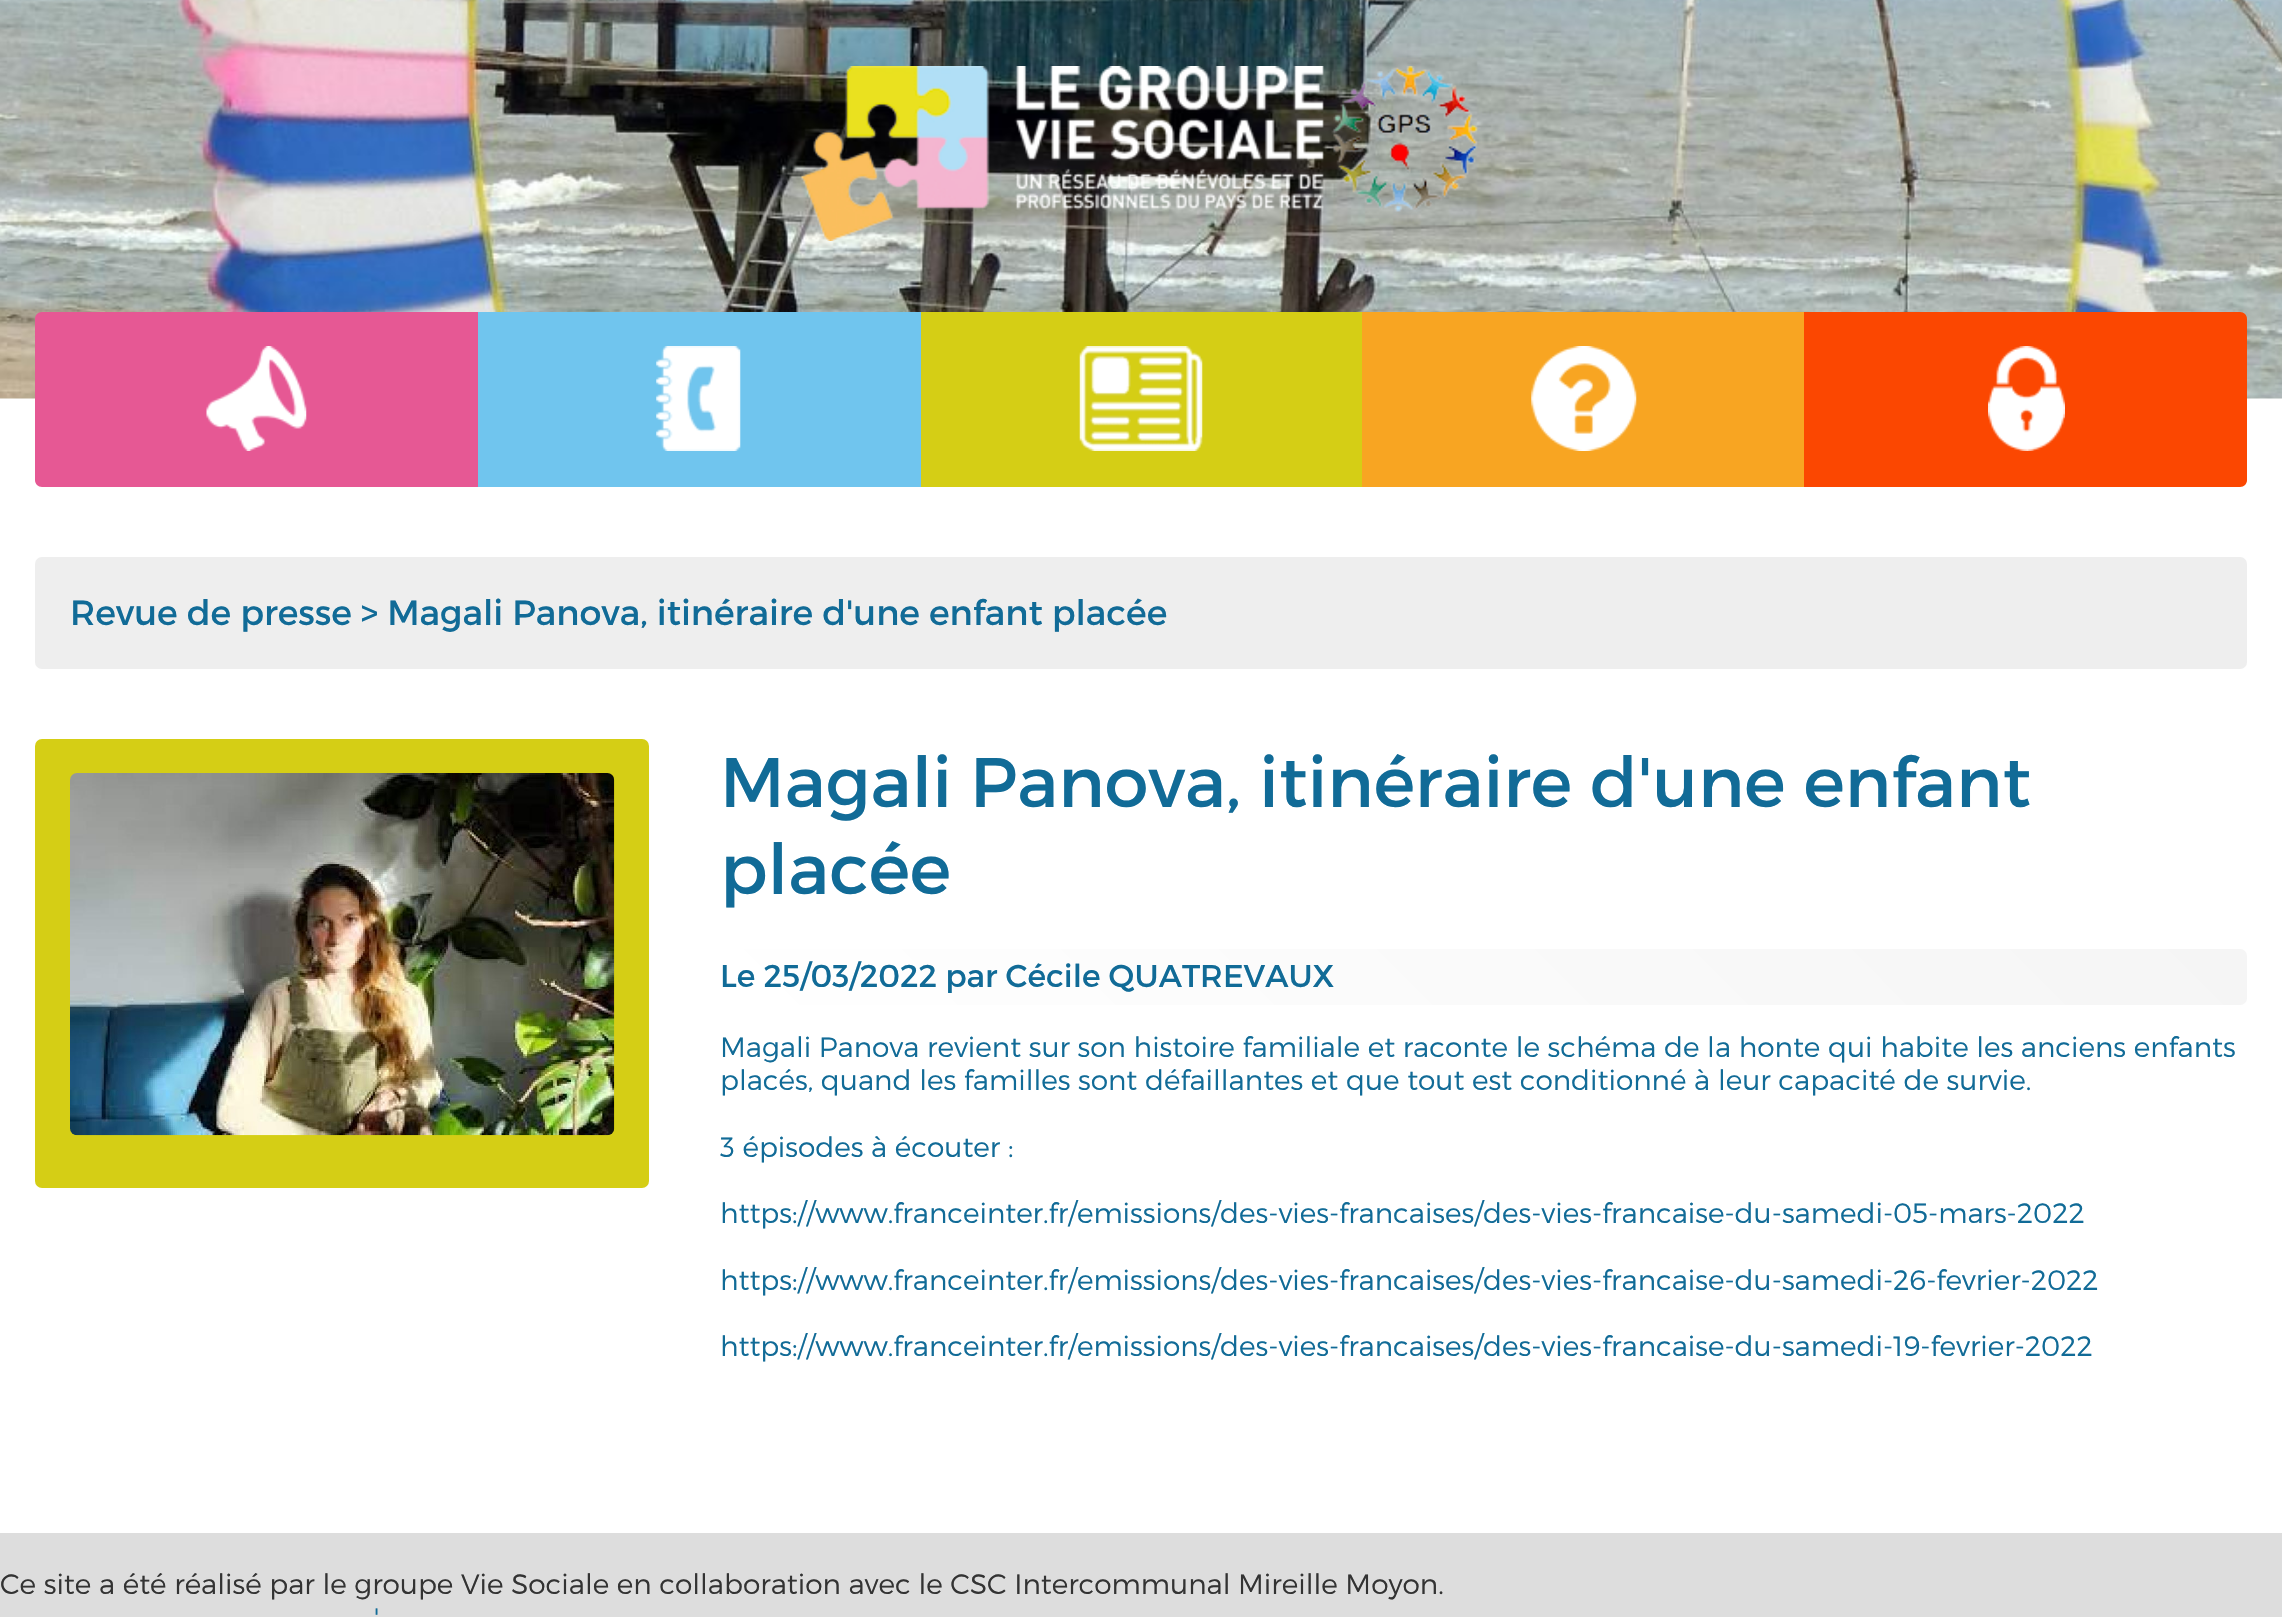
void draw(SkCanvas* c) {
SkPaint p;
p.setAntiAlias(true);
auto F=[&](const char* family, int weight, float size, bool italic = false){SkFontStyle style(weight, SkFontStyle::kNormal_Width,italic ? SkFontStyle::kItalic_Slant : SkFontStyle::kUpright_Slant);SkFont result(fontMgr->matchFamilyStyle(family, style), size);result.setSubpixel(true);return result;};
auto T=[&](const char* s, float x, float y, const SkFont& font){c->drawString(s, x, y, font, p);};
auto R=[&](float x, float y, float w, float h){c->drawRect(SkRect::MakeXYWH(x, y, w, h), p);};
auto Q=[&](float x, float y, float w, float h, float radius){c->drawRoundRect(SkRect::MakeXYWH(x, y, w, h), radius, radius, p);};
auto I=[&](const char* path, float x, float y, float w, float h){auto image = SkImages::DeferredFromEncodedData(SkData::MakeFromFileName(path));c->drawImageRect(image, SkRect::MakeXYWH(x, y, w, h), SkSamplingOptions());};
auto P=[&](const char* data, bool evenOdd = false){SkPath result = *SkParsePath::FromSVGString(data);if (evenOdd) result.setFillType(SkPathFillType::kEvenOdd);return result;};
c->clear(0xffffffff);
I("1.png",0,0,2282,399);
I("2.png",801,66,677,175);
p.setColor(0xffe65894);
c->drawPath(P("M42 312h436v175h-436c-4 0-7-3-7-7v-161c0-4 3-7 7-7z"),p);
I("3.png",206,346,101,105);
p.setColor(0xff70c5ee);
R(478,312,443,175);
I("4.png",656,346,85,105);
p.setColor(0xffd5ce15);
R(921,312,441,175);
I("5.png",1079,346,124,105);
p.setColor(0xfff8a522);
R(1362,312,442,175);
I("6.png",1531,346,106,105);
p.setColor(0xfffb4701);
c->drawPath(P("M1804 312h436c4 0 7 3 7 7v161c0 4-3 7-7 7h-436z"),p);
I("7.png",1988,346,77,105);
p.setColor(0xffeeeeee);
Q(35,557,2212,112,7);
auto f1 = F("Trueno",400,35);
p.setColor(0xff116b97);
T("Revue de presse > Magali Panova, itinéraire d'une enfant placée",70,625,f1);
p.setColor(0xffd5ce15);
Q(35,739,614,449,7);
I("8.png",70,773,545,363);
auto f2 = F("Trueno",400,70);
p.setColor(0xff116b97);
T("Magali Panova, itinéraire d'une enfant",720,807,f2);
T("placée",720,894,f2);
{
const SkColor colors[] = {0xffffffff,0xfff5f5f5};
const float stops[] = {0,1};
const SkPoint ends[] = {{1087,1372}, {1879,581}};
p.setShader(SkGradientShader::MakeLinear(ends, colors, stops, 2, SkTileMode::kClamp));
p.setAlpha(255);
}
Q(719,949,1528,56,7);
auto f3 = F("Trueno",400,31.5);
p.setShader(nullptr);
p.setColor(0xff116b97);
T("Le 25/03/2022 par Cécile QUATREVAUX",720,987,f3);
auto f4 = F("Trueno",300,28);
T("Magali Panova revient sur son histoire familiale et raconte le schéma de la honte qui habite les anciens enfants",720,1057,f4);
T("placés, quand les familles sont défaillantes et que tout est conditionné à leur capacité de survie.",720,1090,f4);
T("3 épisodes à écouter :",720,1157,f4);
T("https://www.franceinter.fr/emissions/des-vies-francaises/des-vies-francaise-du-samedi-05-mars-2022",720,1223,f4);
T("https://www.franceinter.fr/emissions/des-vies-francaises/des-vies-francaise-du-samedi-26-fevrier-2022",720,1290,f4);
T("https://www.franceinter.fr/emissions/des-vies-francaises/des-vies-francaise-du-samedi-19-fevrier-2022",720,1356,f4);
p.setColor(0xffdddddd);
R(0,1533,2282,84);
p.setColor(0xff333333);
T("Ce site a été réalisé par le groupe Vie Sociale en collaboration avec le CSC Intercommunal Mireille Moyon.",0,1594,f4);
p.setColor(0xff116b97);
T("'",374,1628,f4);
}
